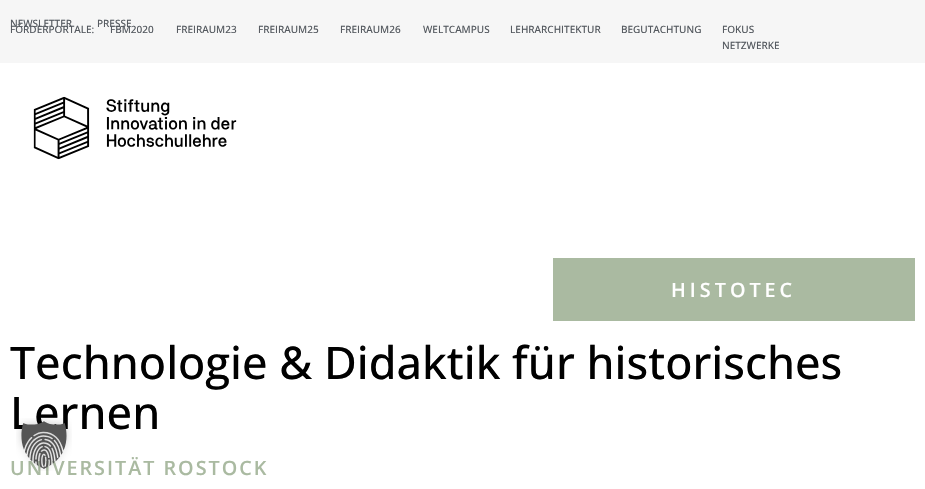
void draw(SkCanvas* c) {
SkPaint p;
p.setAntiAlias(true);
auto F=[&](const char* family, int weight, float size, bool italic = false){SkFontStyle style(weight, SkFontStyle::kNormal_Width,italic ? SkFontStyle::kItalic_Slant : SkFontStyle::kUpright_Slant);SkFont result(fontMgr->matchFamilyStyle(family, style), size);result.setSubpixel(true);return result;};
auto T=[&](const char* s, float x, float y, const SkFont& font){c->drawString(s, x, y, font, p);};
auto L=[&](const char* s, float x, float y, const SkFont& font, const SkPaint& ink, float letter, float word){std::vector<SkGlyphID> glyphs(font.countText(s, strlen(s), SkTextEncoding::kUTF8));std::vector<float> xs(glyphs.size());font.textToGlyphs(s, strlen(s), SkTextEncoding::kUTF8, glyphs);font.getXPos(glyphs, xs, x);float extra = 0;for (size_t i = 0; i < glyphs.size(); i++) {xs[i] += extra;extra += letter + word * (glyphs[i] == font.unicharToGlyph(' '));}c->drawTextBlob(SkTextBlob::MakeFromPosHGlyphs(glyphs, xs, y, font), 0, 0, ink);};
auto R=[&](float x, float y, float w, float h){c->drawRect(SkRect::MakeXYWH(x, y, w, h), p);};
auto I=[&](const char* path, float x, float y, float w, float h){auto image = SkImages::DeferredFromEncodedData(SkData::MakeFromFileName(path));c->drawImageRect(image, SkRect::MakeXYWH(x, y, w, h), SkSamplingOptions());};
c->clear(0xffffffff);
p.setColor(0xfff6f6f6);
R(0,0,925,63);
auto f1 = F("Open Sans",500,10);
p.setColor(0xff54595f);
T("NEWSLETTER",10,27,f1);
T("PRESSE",97,27,f1);
T("FÖRDERPORTALE:",10,33,f1);
T("FBM2020",110,33,f1);
T("FREIRAUM23",176,33,f1);
T("FREIRAUM25",258,33,f1);
T("FREIRAUM26",340,33,f1);
T("WELTCAMPUS",423,33,f1);
T("LEHRARCHITEKTUR",510,33,f1);
T("BEGUTACHTUNG",621,33,f1);
T("FOKUS",722,33,f1);
T("NETZWERKE",722,49,f1);
I("1.png",33,96,204,64);
p.setColor(0xffaabaa1);
R(553,258,362,63);
auto f2 = F("Open Sans",600,19.75);
p.setColor(0xffffffff);
L("HISTOTEC",671,297,f2,p,4,0);
auto f3 = F("Open Sans",500,45);
p.setColor(0xff000000);
T("Technologie & Didaktik für historisches",10,379,f3);
T("Lernen",10,429,f3);
p.setColor(0xffaabaa1);
L("UNIVERSITÄT ROSTOCK",10,475,f2,p,2,0);
I("2.png",16,418,56,53);
}
